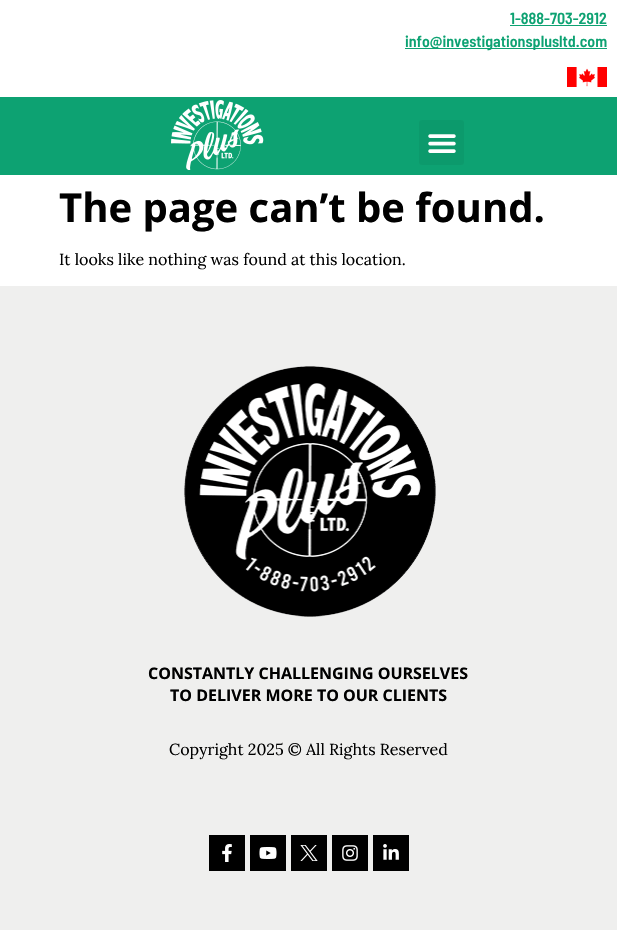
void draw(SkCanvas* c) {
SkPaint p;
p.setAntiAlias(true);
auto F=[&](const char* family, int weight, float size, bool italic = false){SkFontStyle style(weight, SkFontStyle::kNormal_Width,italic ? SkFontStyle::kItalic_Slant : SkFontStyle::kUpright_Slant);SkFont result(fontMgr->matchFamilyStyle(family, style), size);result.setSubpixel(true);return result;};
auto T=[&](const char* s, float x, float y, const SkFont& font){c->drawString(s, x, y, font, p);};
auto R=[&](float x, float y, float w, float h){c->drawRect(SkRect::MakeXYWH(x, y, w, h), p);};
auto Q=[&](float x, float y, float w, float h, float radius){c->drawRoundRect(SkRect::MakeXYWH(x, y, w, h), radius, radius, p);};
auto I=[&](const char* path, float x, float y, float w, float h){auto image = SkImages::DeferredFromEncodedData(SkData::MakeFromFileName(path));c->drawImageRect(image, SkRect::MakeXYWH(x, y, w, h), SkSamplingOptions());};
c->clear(0xffffffff);
auto f1 = F("Barlow Semi Condensed",600,16);
p.setColor(0xff0da272);
T("1-888-703-2912",510,24,f1);
R(510,25,97,1);
R(405,48,202,1);
T("info@investigationsplusltd.com",405,47,f1);
I("1.png",567,67,40,20);
R(0,97,617,78);
I("2.png",171,100,93,70);
p.setColor(0xff0c9a6c);
Q(419,120,45,45,3);
I("3.png",428,134,28,19);
auto f2 = F("Open Sans",700,40);
p.setColor(0xff000000);
T("The page can’t be found.",59,222,f2);
auto f3 = F("Lora",400,16);
T("It looks like nothing was found at this location.",59,265,f3);
p.setColor(0xffefefee);
R(0,286,617,644);
I("4.png",184,366,252,251);
auto f4 = F("Open Sans",700,16);
p.setColor(0xff000000);
T("CONSTANTLY CHALLENGING OURSELVES",148,679,f4);
T("TO DELIVER MORE TO OUR CLIENTS",170,701,f4);
T("Copyright 2025 © All Rights Reserved",169,755,f3);
R(209,835,36,36);
I("5.png",222,844,10,18);
R(250,835,36,36);
I("6.png",259,847,18,12);
R(291,835,36,36);
I("7.png",300,845,18,16);
R(332,835,36,36);
I("8.png",342,845,16,16);
R(373,835,36,36);
I("9.png",383,844,16,16);
}
